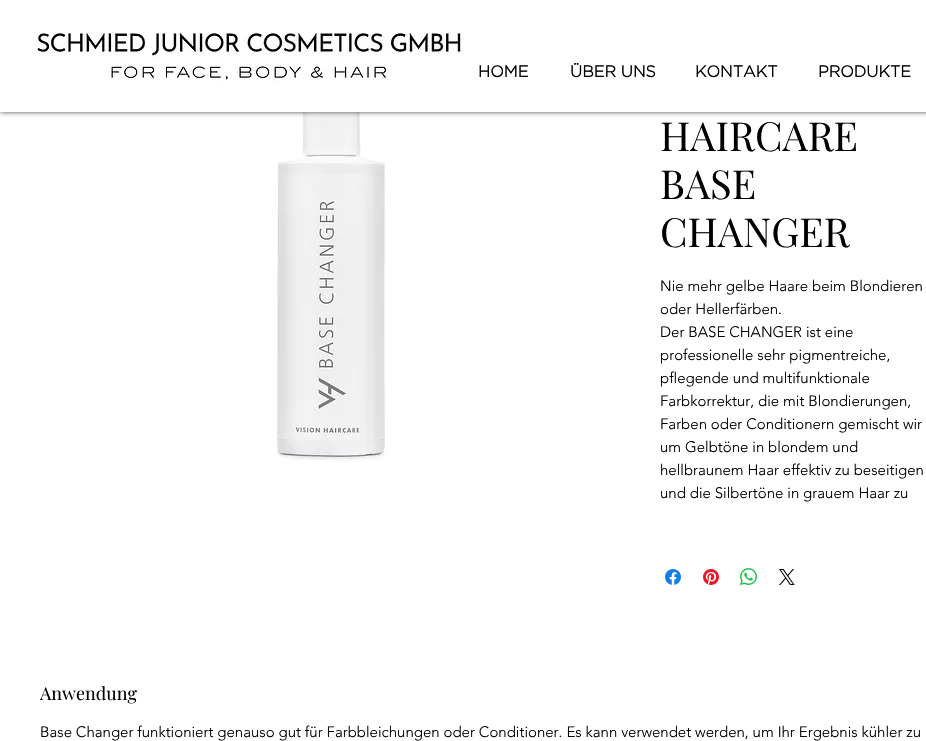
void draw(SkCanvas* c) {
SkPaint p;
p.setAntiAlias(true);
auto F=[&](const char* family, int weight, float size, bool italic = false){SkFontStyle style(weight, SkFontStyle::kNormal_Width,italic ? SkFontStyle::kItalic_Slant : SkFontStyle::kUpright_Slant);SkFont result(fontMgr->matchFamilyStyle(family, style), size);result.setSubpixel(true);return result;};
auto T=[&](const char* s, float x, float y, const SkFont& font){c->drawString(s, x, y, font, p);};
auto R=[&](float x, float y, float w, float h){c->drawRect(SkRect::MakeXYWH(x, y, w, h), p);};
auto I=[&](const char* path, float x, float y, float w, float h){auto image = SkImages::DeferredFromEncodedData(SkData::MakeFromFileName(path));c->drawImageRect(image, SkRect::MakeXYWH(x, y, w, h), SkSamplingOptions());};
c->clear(0xffffffff);
I("2.png",276,112,109,349);
p.setColor(0xb3000000);
p.setMaskFilter(SkMaskFilter::MakeBlur(kNormal_SkBlurStyle, 2.5));
c->drawRect(SkRect::MakeXYWH(0,0,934,112),p);
p.setMaskFilter(nullptr);
p.setColor(0xffffffff);
R(0,0,926,112);
I("1.png",36,33,428,48);
auto f1 = F("Gotham",700,16);
p.setColor(0xff000000);
T("HOME",478,77,f1);
T("ÜBER UNS",570,77,f1);
T("KONTAKT",695,77,f1);
T("PRODUKTE",818,77,f1);
auto f2 = F("Playfair Display",400,40);
T("HAIRCARE",660,151,f2);
T("BASE",660,199,f2);
T("CHANGER",660,247,f2);
auto f3 = F("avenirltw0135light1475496",300,15);
T("Nie mehr gelbe Haare beim Blondieren",660,291,f3);
T("oder Hellerfärben.",660,314,f3);
T("Der BASE CHANGER ist eine",660,337,f3);
T("professionelle sehr pigmentreiche,",660,360,f3);
T("pflegende und multifunktionale",660,383,f3);
T("Farbkorrektur, die mit Blondierungen,",660,406,f3);
T("Farben oder Conditionern gemischt wir",660,429,f3);
T("um Gelbtöne in blondem und",660,452,f3);
T("hellbraunem Haar effektiv zu beseitigen",660,475,f3);
T("und die Silbertöne in grauem Haar zu",660,498,f3);
I("3.png",665,569,16,16);
I("4.png",703,569,16,16);
I("5.png",740,568,17,17);
I("6.png",779,569,16,16);
auto f4 = F("Playfair Display",400,18);
T("Anwendung",40,700,f4);
T("Base Changer funktioniert genauso gut für Farbbleichungen oder Conditioner. Es kann verwendet werden, um Ihr Ergebnis kühler zu",40,737,f3);
}
